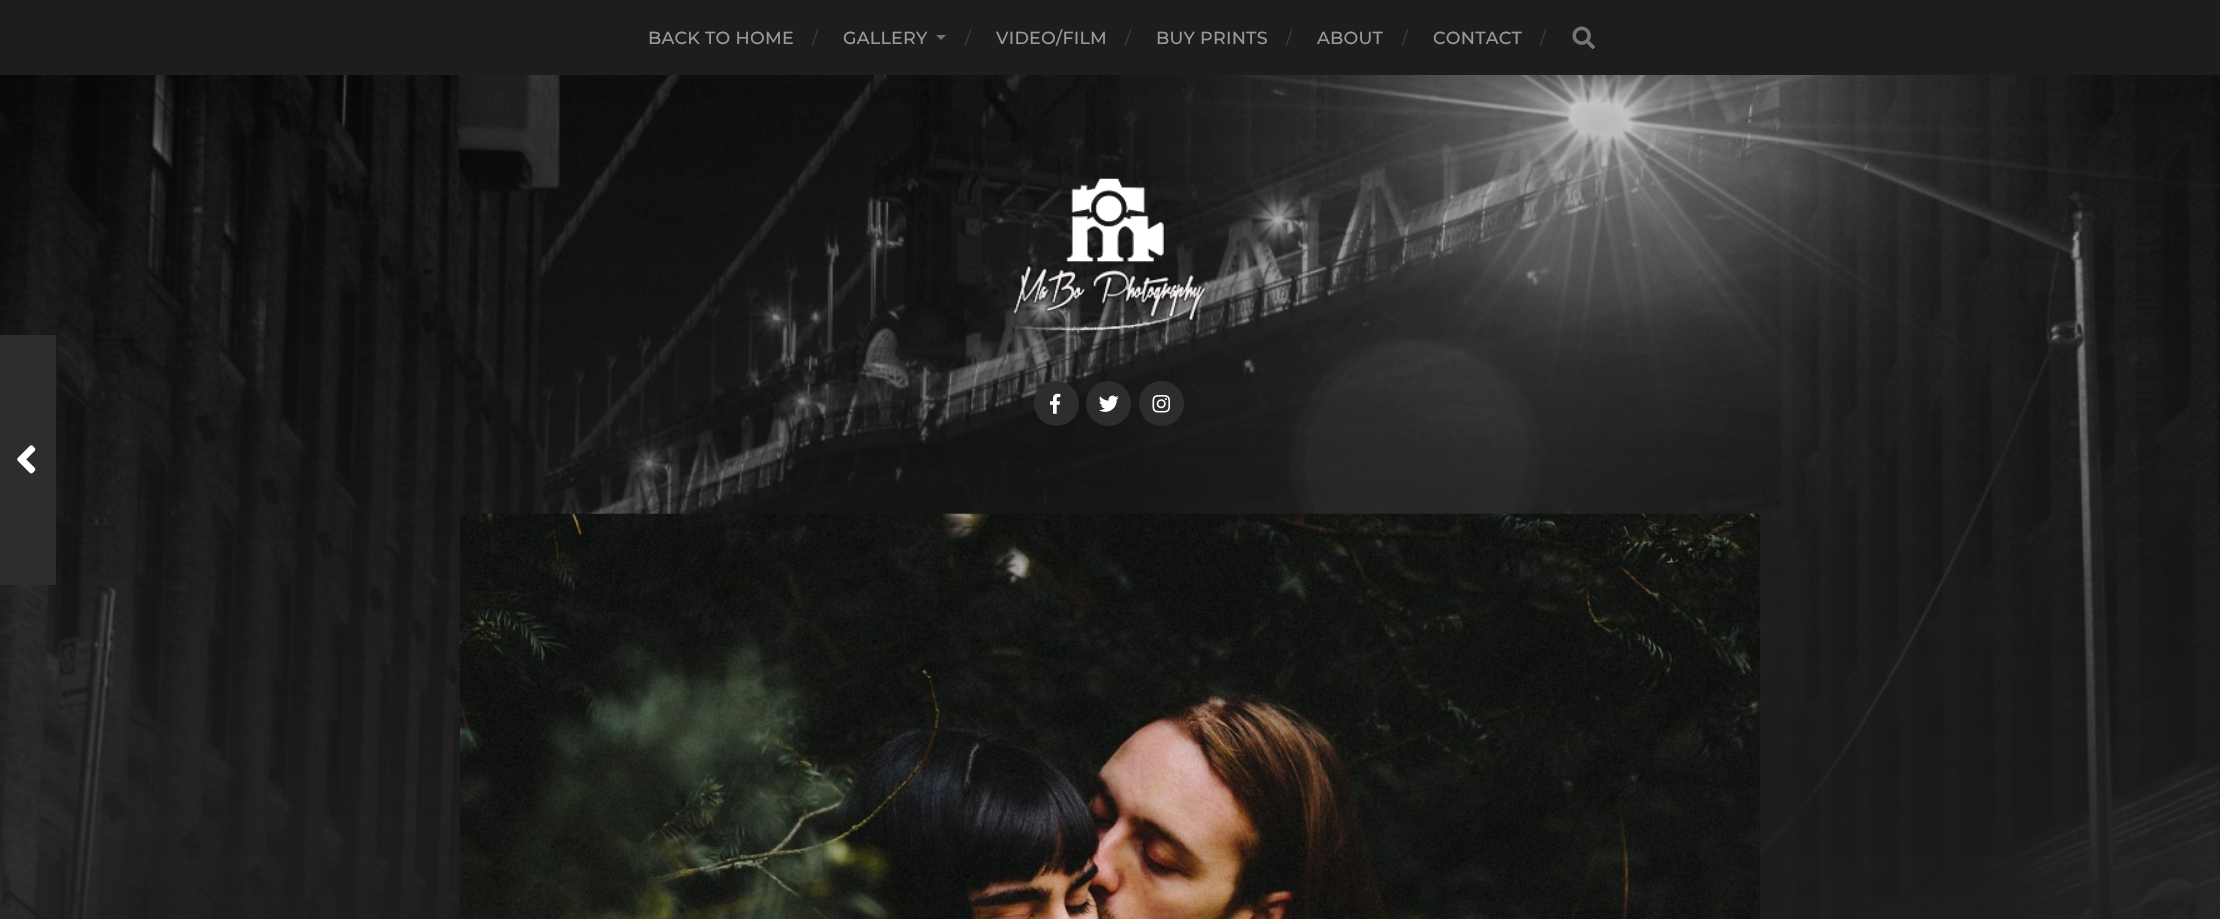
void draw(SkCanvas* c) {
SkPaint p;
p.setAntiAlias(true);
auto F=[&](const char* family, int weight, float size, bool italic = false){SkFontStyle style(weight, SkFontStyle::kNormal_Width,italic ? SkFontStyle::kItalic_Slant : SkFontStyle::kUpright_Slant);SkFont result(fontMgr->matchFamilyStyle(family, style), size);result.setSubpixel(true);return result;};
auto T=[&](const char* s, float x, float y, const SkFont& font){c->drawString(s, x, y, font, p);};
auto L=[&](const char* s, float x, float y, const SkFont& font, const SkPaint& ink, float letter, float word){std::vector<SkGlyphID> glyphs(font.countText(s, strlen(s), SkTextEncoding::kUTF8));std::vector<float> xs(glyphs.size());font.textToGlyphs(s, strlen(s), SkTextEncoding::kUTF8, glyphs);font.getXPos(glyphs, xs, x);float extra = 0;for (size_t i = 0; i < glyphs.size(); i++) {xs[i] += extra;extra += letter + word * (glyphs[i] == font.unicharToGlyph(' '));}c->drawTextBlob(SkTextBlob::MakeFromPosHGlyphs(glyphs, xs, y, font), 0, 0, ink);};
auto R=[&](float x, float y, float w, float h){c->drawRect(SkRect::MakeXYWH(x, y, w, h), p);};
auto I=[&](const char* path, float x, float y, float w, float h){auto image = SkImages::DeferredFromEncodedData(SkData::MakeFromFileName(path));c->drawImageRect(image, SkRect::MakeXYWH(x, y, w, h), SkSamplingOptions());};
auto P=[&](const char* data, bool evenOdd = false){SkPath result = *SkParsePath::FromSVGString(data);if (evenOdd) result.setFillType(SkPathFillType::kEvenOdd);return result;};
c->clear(0xff1d1d1d);
auto f1 = F("Montserrat",500,17.5);
p.setColor(0xff999999);
L("BACK TO HOME",648,44,f1,p,.25,0);
auto f2 = F("Montserrat",400,17.5);
p.setColor(0xff3d3d3d);
T("/",812,44,f2);
p.setColor(0xff999999);
L("GALLERY",843,44,f1,p,.25,0);
p.setColor(0xff757575);
c->drawPath(P("M936 35h10l-5 5z"),p);
p.setColor(0xff3d3d3d);
T("/",965,44,f2);
p.setColor(0xff999999);
L("VIDEO/FILM",996,44,f1,p,.25,0);
p.setColor(0xff3d3d3d);
T("/",1125,44,f2);
p.setColor(0xff999999);
L("BUY PRINTS",1156,44,f1,p,.25,0);
p.setColor(0xff3d3d3d);
T("/",1286,44,f2);
p.setColor(0xff999999);
L("ABOUT",1317,44,f1,p,.25,0);
p.setColor(0xff3d3d3d);
T("/",1402,44,f2);
p.setColor(0xff999999);
L("CONTACT",1433,44,f1,p,.25,0);
p.setColor(0xff3d3d3d);
T("/",1540,44,f2);
I("1.png",1572,26,23,23);
I("2.png",0,75,2220,844);
I("3.png",1012,178,196,155);
p.setColor(0xff2d2d2d);
c->drawCircle(1056.5,403.5,22.5,p);
I("4.png",1050,393,11,21);
c->drawCircle(1108.5,403.5,22.5,p);
I("5.png",1099,395,20,17);
c->drawCircle(1161.5,403.5,22.5,p);
I("6.png",1152,395,18,18);
R(0,335,56,250);
I("7.png",17,445,19,29);
I("8.png",460,513,1300,406);
}
